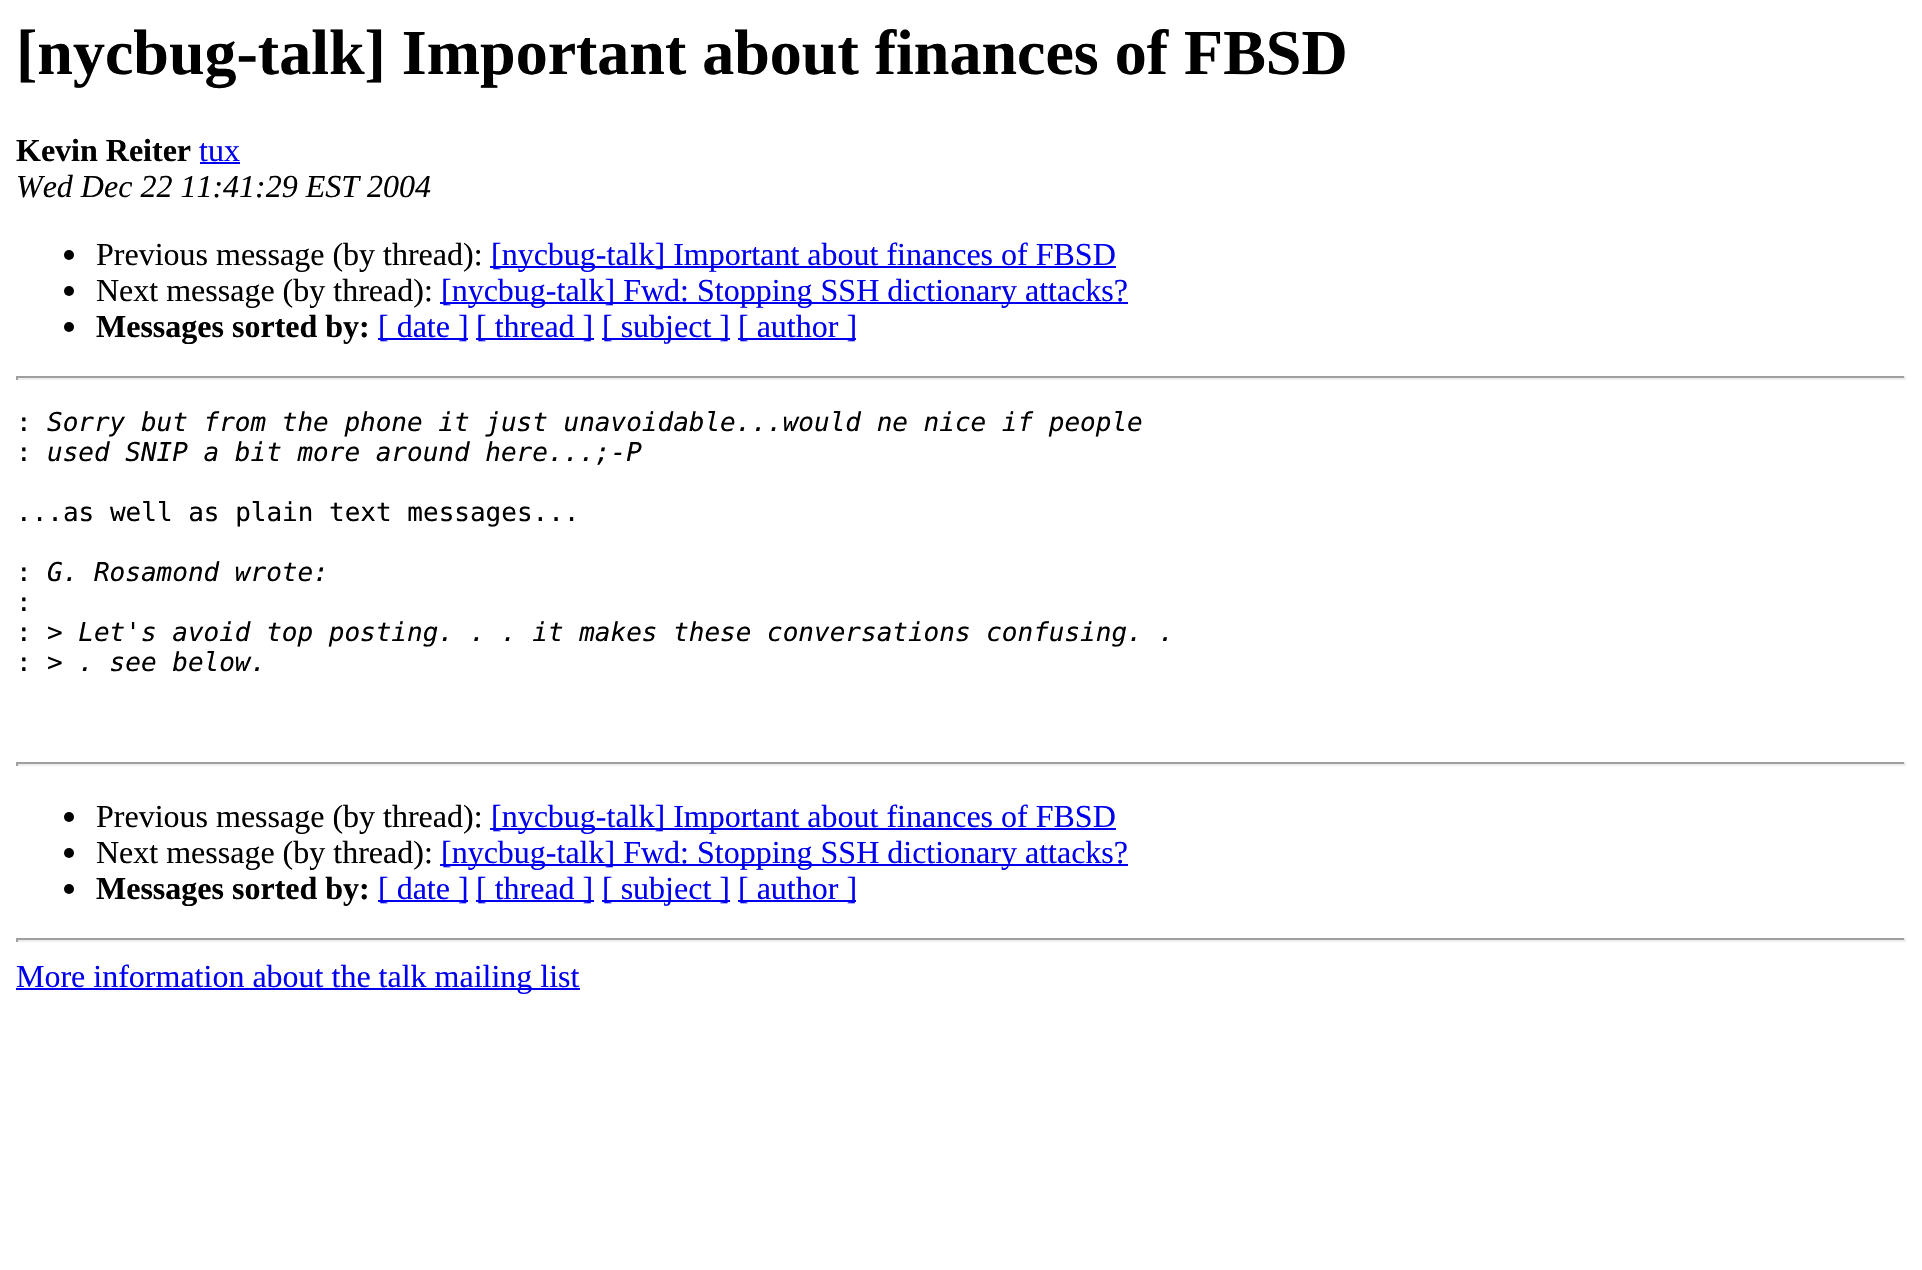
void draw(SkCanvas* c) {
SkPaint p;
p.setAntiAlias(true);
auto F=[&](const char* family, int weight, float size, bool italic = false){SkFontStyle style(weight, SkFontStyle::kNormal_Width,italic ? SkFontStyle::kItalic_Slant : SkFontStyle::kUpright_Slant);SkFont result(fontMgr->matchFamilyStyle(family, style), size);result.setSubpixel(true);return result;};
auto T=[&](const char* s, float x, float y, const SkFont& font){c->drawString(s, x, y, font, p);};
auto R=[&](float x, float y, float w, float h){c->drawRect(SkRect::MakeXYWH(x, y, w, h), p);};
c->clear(0xffffffff);
auto f1 = F("Liberation Serif",700,64);
p.setColor(0xff000000);
T("[nycbug-talk] Important about finances of FBSD",16,74,f1);
auto f2 = F("Liberation Serif",700,32);
T("Kevin Reiter",16,161,f2);
auto f3 = F("Liberation Serif",400,32);
p.setColor(0xff0000ee);
T("tux",199,161,f3);
R(200,162,40,2);
auto f4 = F("Liberation Serif",400,32,true);
p.setColor(0xff000000);
T("Wed Dec 22 11:41:29 EST 2004",16,197,f4);
c->drawCircle(69,255,5,p);
T("Previous message (by thread):",96,265,f3);
p.setColor(0xff0000ee);
R(490,266,626,2);
T("[nycbug-talk] Important about finances of FBSD",491,265,f3);
p.setColor(0xff000000);
c->drawCircle(69,291,5,p);
T("Next message (by thread):",96,301,f3);
p.setColor(0xff0000ee);
R(440,302,688,2);
T("[nycbug-talk] Fwd: Stopping SSH dictionary attacks?",441,301,f3);
p.setColor(0xff000000);
c->drawCircle(69,327,5,p);
T("Messages sorted by:",96,337,f2);
p.setColor(0xff0000ee);
R(378,338,90,2);
T("[ date ]",378,337,f3);
R(476,338,118,2);
T("[ thread ]",476,337,f3);
R(602,338,128,2);
T("[ subject ]",602,337,f3);
R(738,338,118,2);
T("[ author ]",738,337,f3);
p.setColor(0xff9f9f9f);
R(16,376,1890,2);
p.setColor(0xffeeeeee);
R(1904,376,2,4);
R(16,378,1890,2);
p.setColor(0xff9f9f9f);
R(16,376,2,4);
auto f5 = F("DejaVu Sans Mono",400,26);
p.setColor(0xff000000);
T(":",16,431,f5);
auto f6 = F("DejaVu Sans Mono",400,26,true);
T("Sorry but from the phone it just unavoidable...would ne nice if people",47,431,f6);
T(":",16,461,f5);
T("used SNIP a bit more around here...;-P",47,461,f6);
T("...as well as plain text messages...",16,521,f5);
T(":",16,581,f5);
T("G. Rosamond wrote:",47,581,f6);
T(":",16,611,f5);
T(":",16,641,f5);
T("> Let's avoid top posting. . . it makes these conversations confusing. .",47,641,f6);
T(":",16,671,f5);
T("> . see below.",47,671,f6);
p.setColor(0xff9f9f9f);
R(16,762,1890,2);
p.setColor(0xffeeeeee);
R(1904,762,2,4);
R(16,764,1890,2);
p.setColor(0xff9f9f9f);
R(16,762,2,4);
p.setColor(0xff000000);
c->drawCircle(69,817,5,p);
T("Previous message (by thread):",96,827,f3);
p.setColor(0xff0000ee);
R(490,828,626,2);
T("[nycbug-talk] Important about finances of FBSD",491,827,f3);
p.setColor(0xff000000);
c->drawCircle(69,853,5,p);
T("Next message (by thread):",96,863,f3);
p.setColor(0xff0000ee);
R(440,864,688,2);
T("[nycbug-talk] Fwd: Stopping SSH dictionary attacks?",441,863,f3);
p.setColor(0xff000000);
c->drawCircle(69,889,5,p);
T("Messages sorted by:",96,899,f2);
p.setColor(0xff0000ee);
R(378,900,90,2);
T("[ date ]",378,899,f3);
R(476,900,118,2);
T("[ thread ]",476,899,f3);
R(602,900,128,2);
T("[ subject ]",602,899,f3);
R(738,900,118,2);
T("[ author ]",738,899,f3);
p.setColor(0xff9f9f9f);
R(16,938,1890,2);
p.setColor(0xffeeeeee);
R(1904,938,2,4);
R(16,940,1890,2);
p.setColor(0xff9f9f9f);
R(16,938,2,4);
p.setColor(0xff0000ee);
R(16,988,564,2);
T("More information about the talk mailing list",16,987,f3);
}
